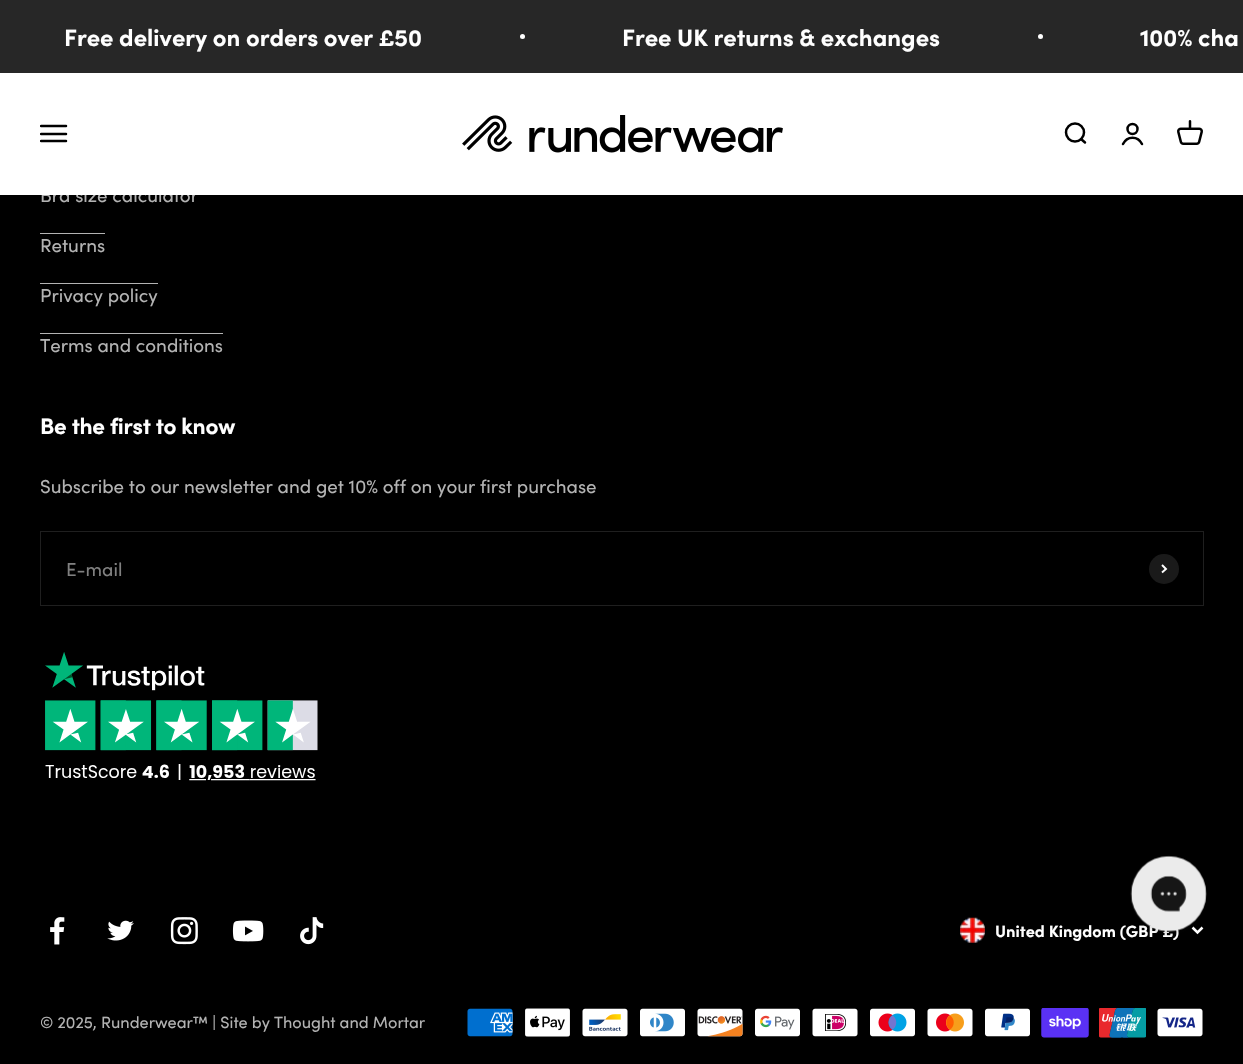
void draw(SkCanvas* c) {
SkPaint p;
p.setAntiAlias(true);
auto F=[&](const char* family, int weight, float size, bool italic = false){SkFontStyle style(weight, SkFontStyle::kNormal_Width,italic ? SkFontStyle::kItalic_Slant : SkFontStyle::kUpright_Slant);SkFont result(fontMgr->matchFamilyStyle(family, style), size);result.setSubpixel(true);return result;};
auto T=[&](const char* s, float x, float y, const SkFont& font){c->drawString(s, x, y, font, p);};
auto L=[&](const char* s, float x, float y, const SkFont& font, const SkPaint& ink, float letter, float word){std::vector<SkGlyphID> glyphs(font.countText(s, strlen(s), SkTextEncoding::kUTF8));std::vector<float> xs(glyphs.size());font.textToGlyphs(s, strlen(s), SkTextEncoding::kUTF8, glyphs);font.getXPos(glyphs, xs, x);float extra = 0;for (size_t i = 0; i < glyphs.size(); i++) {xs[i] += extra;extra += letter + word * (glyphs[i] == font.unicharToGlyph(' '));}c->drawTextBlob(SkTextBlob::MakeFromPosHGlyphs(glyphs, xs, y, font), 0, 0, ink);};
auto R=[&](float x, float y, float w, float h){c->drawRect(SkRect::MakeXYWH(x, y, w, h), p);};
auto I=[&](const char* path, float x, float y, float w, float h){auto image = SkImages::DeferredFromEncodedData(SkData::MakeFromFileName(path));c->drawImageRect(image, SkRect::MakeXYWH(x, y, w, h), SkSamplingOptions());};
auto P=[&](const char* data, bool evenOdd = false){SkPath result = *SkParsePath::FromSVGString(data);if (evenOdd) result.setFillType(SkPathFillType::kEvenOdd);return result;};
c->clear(0xff000000);
p.setColor(0xff272727);
R(0,0,1243,73);
auto f1 = F("Sofia",700,23.75);
p.setColor(0xffffffff);
T("Free delivery on orders over £50",64,46,f1);
c->drawCircle(522.5,36.5,2.5,p);
T("Free UK returns & exchanges",622,46,f1);
c->drawCircle(1040.5,36.5,2.5,p);
T("100% cha",1140,46,f1);
auto f2 = F("Sofia",400,18.75);
p.setColor(0xffb3b3b3);
T("Bra size calculator",40,202,f2);
p.setColor(0xffffffff);
R(0,73,1243,122);
c->save();
c->clipRect(SkRect::MakeXYWH(40,120,28,28));
p.setStroke(true);
p.setStrokeWidth(2.5);
p.setStrokeCap(SkPaint::kRound_Cap);
p.setColor(0xff000000);
c->drawPath(P("M41 126h25m-25 8h25m-25 7h25"),p);
c->restore();
I("1.png",462,115,321,38);
p.setStrokeCap(SkPaint::kButt_Cap);
c->drawCircle(1075,132.5,9,p);
p.setStrokeCap(SkPaint::kRound_Cap);
p.setStrokeJoin(SkPaint::kRound_Join);
c->drawPath(P("M1081 139l4 3.5"),p);
p.setStrokeCap(SkPaint::kButt_Cap);
p.setStrokeJoin(SkPaint::kMiter_Join);
c->drawCircle(1132.5,129,5,p);
p.setStrokeCap(SkPaint::kRound_Cap);
c->drawPath(P("M1123 144c4-8.5 15-8.5 19 0"),p);
I("2.png",1177,120,26,25);
p.setStroke(false);
p.setColor(0xffb3b3b3);
T("Returns",40,252,f2);
R(40,233,65,1);
T("Privacy policy",40,302,f2);
R(40,283,118,1);
T("Terms and conditions",40,352,f2);
R(40,333,183,1);
auto f3 = F("Sofia",700,22.5);
p.setColor(0xffffffff);
L("Be the first to know",40,434,f3,p,-.25,0);
p.setColor(0xffb3b3b3);
T("Subscribe to our newsletter and get 10% off on your first purchase",40,493,f2);
p.setStroke(true);
p.setStrokeWidth(1);
p.setStrokeCap(SkPaint::kButt_Cap);
p.setColor(0xff1f1f1f);
c->drawRect(SkRect::MakeXYWH(40.5,531.5,1163,74),p);
p.setStroke(false);
p.setColor(0xff808080);
T("E-mail",66,576,f2);
p.setColor(0xff1a1a1a);
c->drawCircle(1164,569,15,p);
p.setStroke(true);
p.setStrokeWidth(1.9);
p.setColor(0xffffffff);
c->drawPath(P("M1162 572.5l4-3.5l-4-4"),p);
I("3.png",45,652,273,129);
I("4.png",50,917,15,28);
I("5.png",107,920,27,21);
I("6.png",170,917,28,28);
I("7.png",232,920,32,22);
I("8.png",300,917,24,28);
I("9.png",960,917,25,26);
auto f4 = F("Sofia",700,16.25);
p.setStroke(false);
T("United Kingdom (GBP £)",995,937,f4);
p.setStroke(true);
p.setStrokeWidth(2.5);
c->drawPath(P("M1192.5 927.5l5 5l5-5"),p);
auto f5 = F("Sofia",400,16.25);
p.setStroke(false);
p.setColor(0xffb3b3b3);
T("© 2025, Runderwear™ | Site by Thought and Mortar",40,1028,f5);
I("10.png",467,1008,46,29);
I("11.png",525,1008,45,29);
I("12.png",582,1008,46,29);
I("13.png",640,1008,45,29);
I("14.png",697,1008,46,29);
I("15.png",755,1008,45,29);
I("16.png",812,1008,46,29);
I("17.png",870,1008,45,29);
I("18.png",927,1008,46,29);
I("19.png",985,1008,45,29);
I("20.png",1041,1008,48,30);
I("21.png",1099,1008,47,30);
I("22.png",1157,1008,46,29);
I("23.png",1130,855,77,81);
}
